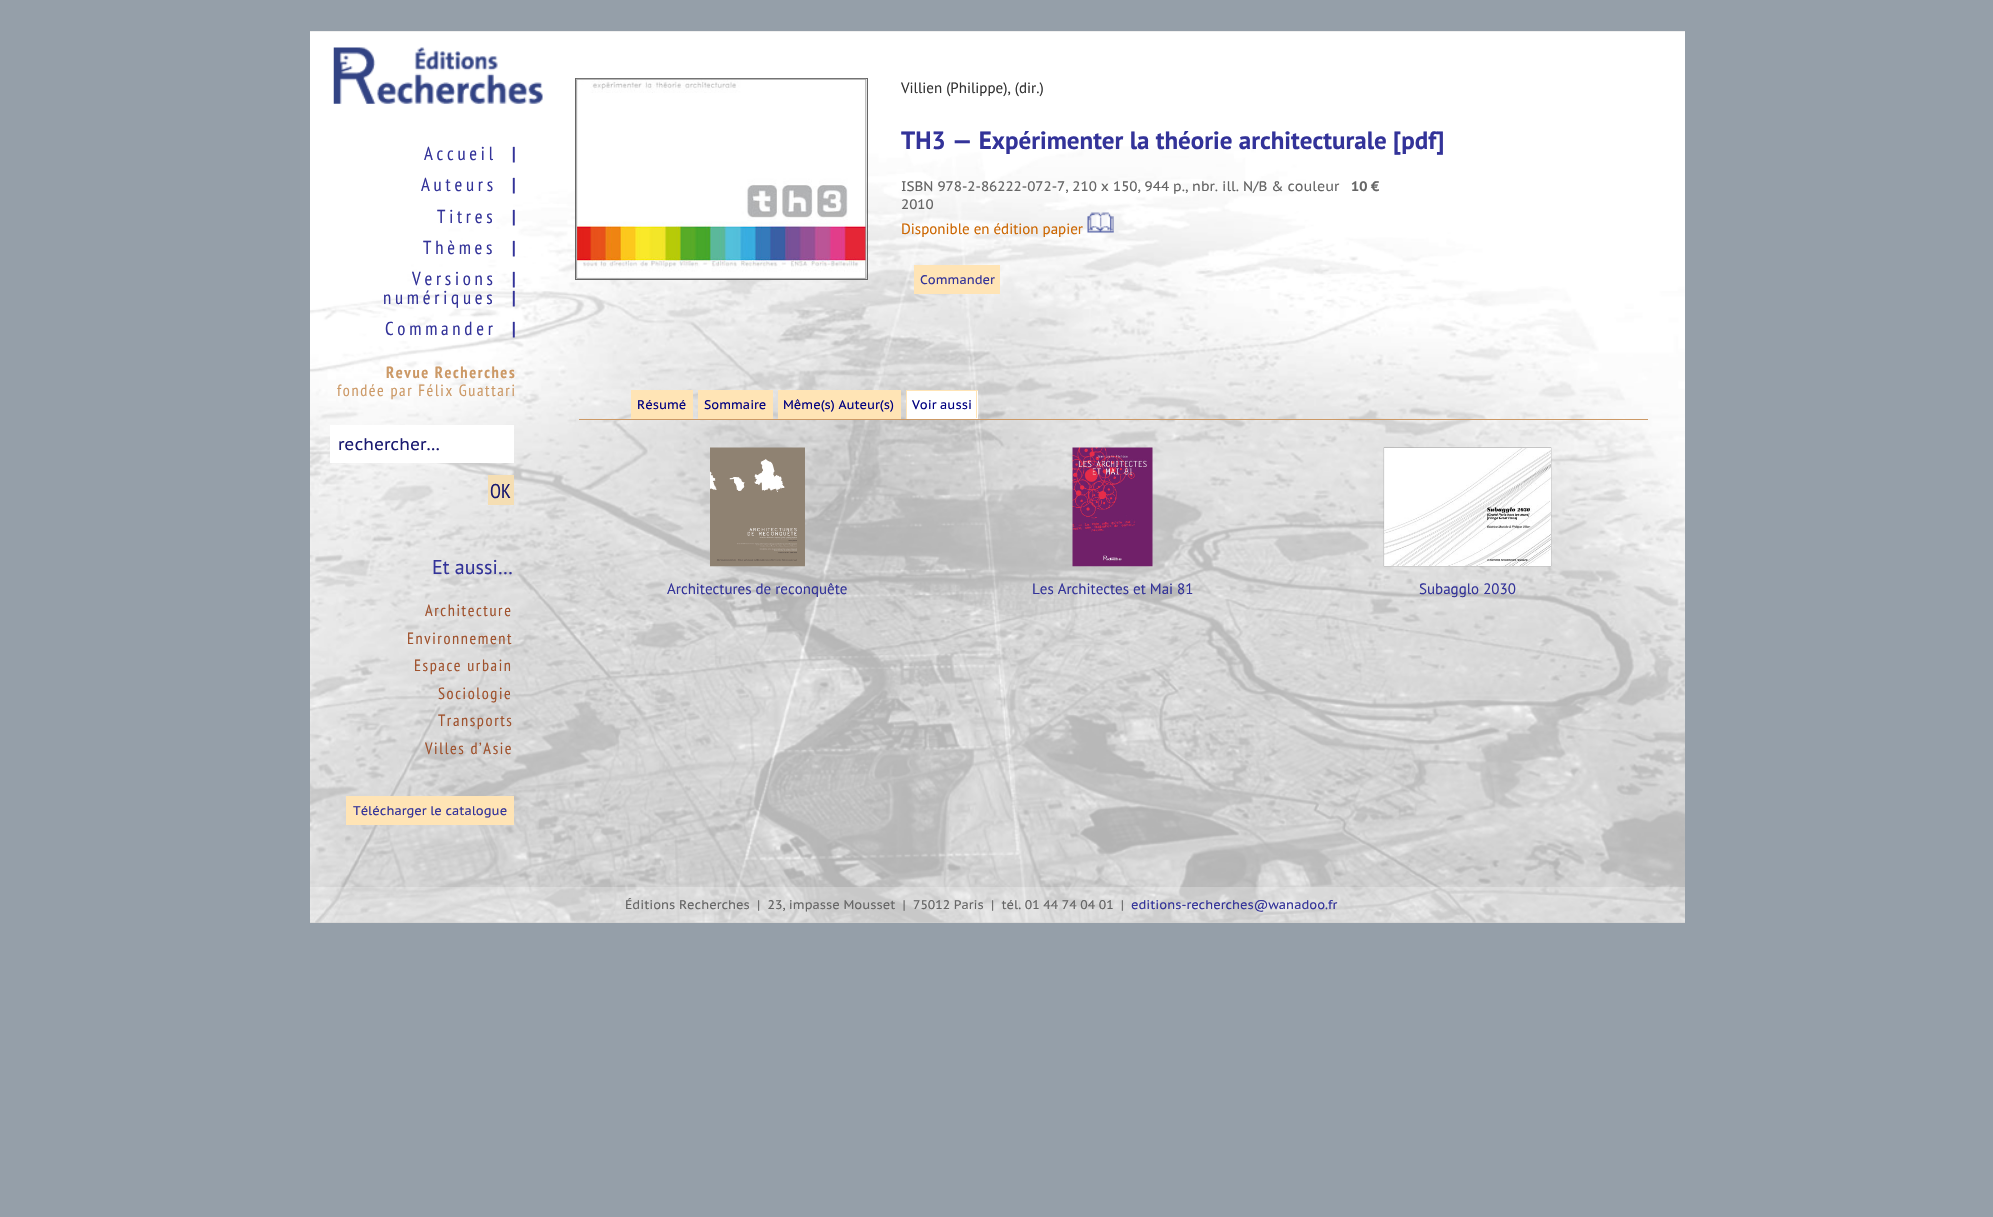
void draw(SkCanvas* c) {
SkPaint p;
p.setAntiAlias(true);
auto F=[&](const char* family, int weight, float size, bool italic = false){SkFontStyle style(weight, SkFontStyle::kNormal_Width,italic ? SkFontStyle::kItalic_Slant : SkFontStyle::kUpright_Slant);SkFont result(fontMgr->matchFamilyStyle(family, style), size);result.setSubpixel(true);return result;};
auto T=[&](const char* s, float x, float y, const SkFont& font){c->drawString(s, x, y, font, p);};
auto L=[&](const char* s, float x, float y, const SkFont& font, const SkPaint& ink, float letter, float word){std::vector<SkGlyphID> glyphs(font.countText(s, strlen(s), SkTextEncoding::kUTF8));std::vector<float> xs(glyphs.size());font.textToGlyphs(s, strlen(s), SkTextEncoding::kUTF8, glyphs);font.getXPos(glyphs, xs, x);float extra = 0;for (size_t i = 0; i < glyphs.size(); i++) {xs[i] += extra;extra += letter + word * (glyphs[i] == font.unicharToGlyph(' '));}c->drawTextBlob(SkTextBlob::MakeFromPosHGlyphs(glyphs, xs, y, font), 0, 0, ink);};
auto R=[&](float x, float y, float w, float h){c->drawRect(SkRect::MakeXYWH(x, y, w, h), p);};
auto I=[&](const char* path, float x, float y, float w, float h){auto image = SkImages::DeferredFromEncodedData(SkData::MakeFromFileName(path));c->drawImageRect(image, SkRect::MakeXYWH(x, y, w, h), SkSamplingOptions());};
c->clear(0xff959fa9);
p.setColor(0xffc0c0c0);
R(310,31,1375,892);
I("1.png",310,31,1375,892);
I("2.png",333,47,210,57);
auto f1 = F("PT Sans Narrow",400,18.75);
p.setColor(0xff333399);
L("Accueil",424,160,f1,p,3.75,0);
auto f2 = F("PT Sans Narrow",700,18.75);
L("|",512,160,f2,p,3.75,0);
L("Auteurs",421,191,f1,p,3.75,0);
L("|",512,191,f2,p,3.75,0);
L("Titres",437,223,f1,p,3.75,0);
L("|",512,223,f2,p,3.75,0);
L("Thèmes",423,254,f1,p,3.75,0);
L("|",512,254,f2,p,3.75,0);
L("Versions",412,285,f1,p,3.75,0);
L("|",512,285,f2,p,3.75,0);
L("numériques",383,304,f1,p,3.75,0);
L("|",512,304,f2,p,3.75,0);
L("Commander",385,335,f1,p,3.75,0);
L("|",512,335,f2,p,3.75,0);
auto f3 = F("PT Sans Narrow",700,16.25);
p.setColor(0xffcc9966);
L("Revue Recherches",386,378,f3,p,1.6,0);
auto f4 = F("PT Sans Narrow",400,16.25);
L("fondée par Félix Guattari",337,396,f4,p,1.6,0);
p.setColor(0xffffffff);
R(330,425,184,38);
auto f5 = F("PT Sans Caption",400,16.75);
p.setColor(0xff191970);
T("rechercher…",338,450,f5);
p.setColor(0xfff5deb3);
R(488,475,26,30);
auto f6 = F("PT Sans Narrow",400,20);
p.setColor(0xff191970);
T("OK",490,498,f6);
auto f7 = F("PT Sans",400,20);
p.setColor(0xff333399);
T("Et aussi…",432,574,f7);
p.setColor(0xffa0522d);
L("Architecture",425,616,f4,p,1.6,0);
L("Environnement",407,644,f4,p,1.6,0);
L("Espace urbain",414,671,f4,p,1.6,0);
L("Sociologie",438,699,f4,p,1.6,0);
L("Transports",438,726,f4,p,1.6,0);
L("Villes d’Asie",425,754,f4,p,1.6,0);
p.setColor(0xffffe4b5);
R(346,796,168,29);
auto f8 = F("PT Sans Caption",400,12.5);
p.setColor(0xff333399);
T("Télécharger le catalogue",353,815,f8);
p.setStroke(true);
p.setStrokeWidth(1);
p.setColor(0xff666666);
c->drawRect(SkRect::MakeXYWH(575.5,78.5,292,201),p);
I("3.png",576,78,291,201);
auto f9 = F("PT Sans",400,15);
p.setStroke(false);
p.setColor(0xff333333);
T("Villien (Philippe), (dir.)",901,93,f9);
auto f10 = F("PT Sans",700,25);
p.setColor(0xff333399);
T("TH3 — Expérimenter la théorie architecturale [pdf]",901,149,f10);
auto f11 = F("PT Sans Caption",400,13.75);
p.setColor(0xff666666);
T("ISBN 978-2-86222-072-7, 210 x 150, 944 p., nbr. ill. N/B & couleur",901,191,f11);
auto f12 = F("PT Sans Caption",700,13.75);
T("10 €",1351,191,f12);
T("2010",901,209,f11);
p.setColor(0xffcc6600);
T("Disponible en édition papier",901,234,f9);
I("4.png",1087,212,27,21);
p.setColor(0xffffe4b5);
R(914,265,86,29);
p.setColor(0xff333399);
T("Commander",920,284,f8);
p.setColor(0xffcc9966);
R(579,419,1069,1);
p.setColor(0xffffe4b5);
R(631,390,62,29);
p.setColor(0xff000080);
T("Résumé",637,409,f8);
p.setColor(0xffffe4b5);
R(698,390,75,29);
p.setColor(0xff000080);
T("Sommaire",704,409,f8);
p.setColor(0xffffe4b5);
R(778,390,123,29);
p.setColor(0xff000080);
T("Même(s) Auteur(s)",783,409,f8);
p.setColor(0xffffffff);
R(907,391,71,27);
p.setColor(0xffffe4b5);
R(906,390,72,1);
R(976,390,1,29);
p.setColor(0xffffffff);
R(906,418,72,1);
p.setColor(0xffffe4b5);
R(906,390,1,29);
p.setColor(0xff000080);
T("Voir aussi",912,409,f8);
I("5.png",710,447,95,120);
p.setColor(0xff333399);
T("Architectures de reconquête",667,594,f9);
I("6.png",1072,447,81,120);
T("Les Architectes et Mai 81",1032,594,f9);
I("7.png",1383,447,169,120);
T("Subagglo 2030",1419,594,f9);
p.setColor(0x40ffffff);
R(310,887,1375,36);
p.setColor(0xff666666);
T("Éditions Recherches  |  23, impasse Mousset  |  75012 Paris  |  tél. 01 44 74 04 01  |",625,909,f8);
p.setColor(0xff333399);
T("editions-recherches@wanadoo.fr",1131,909,f8);
}
